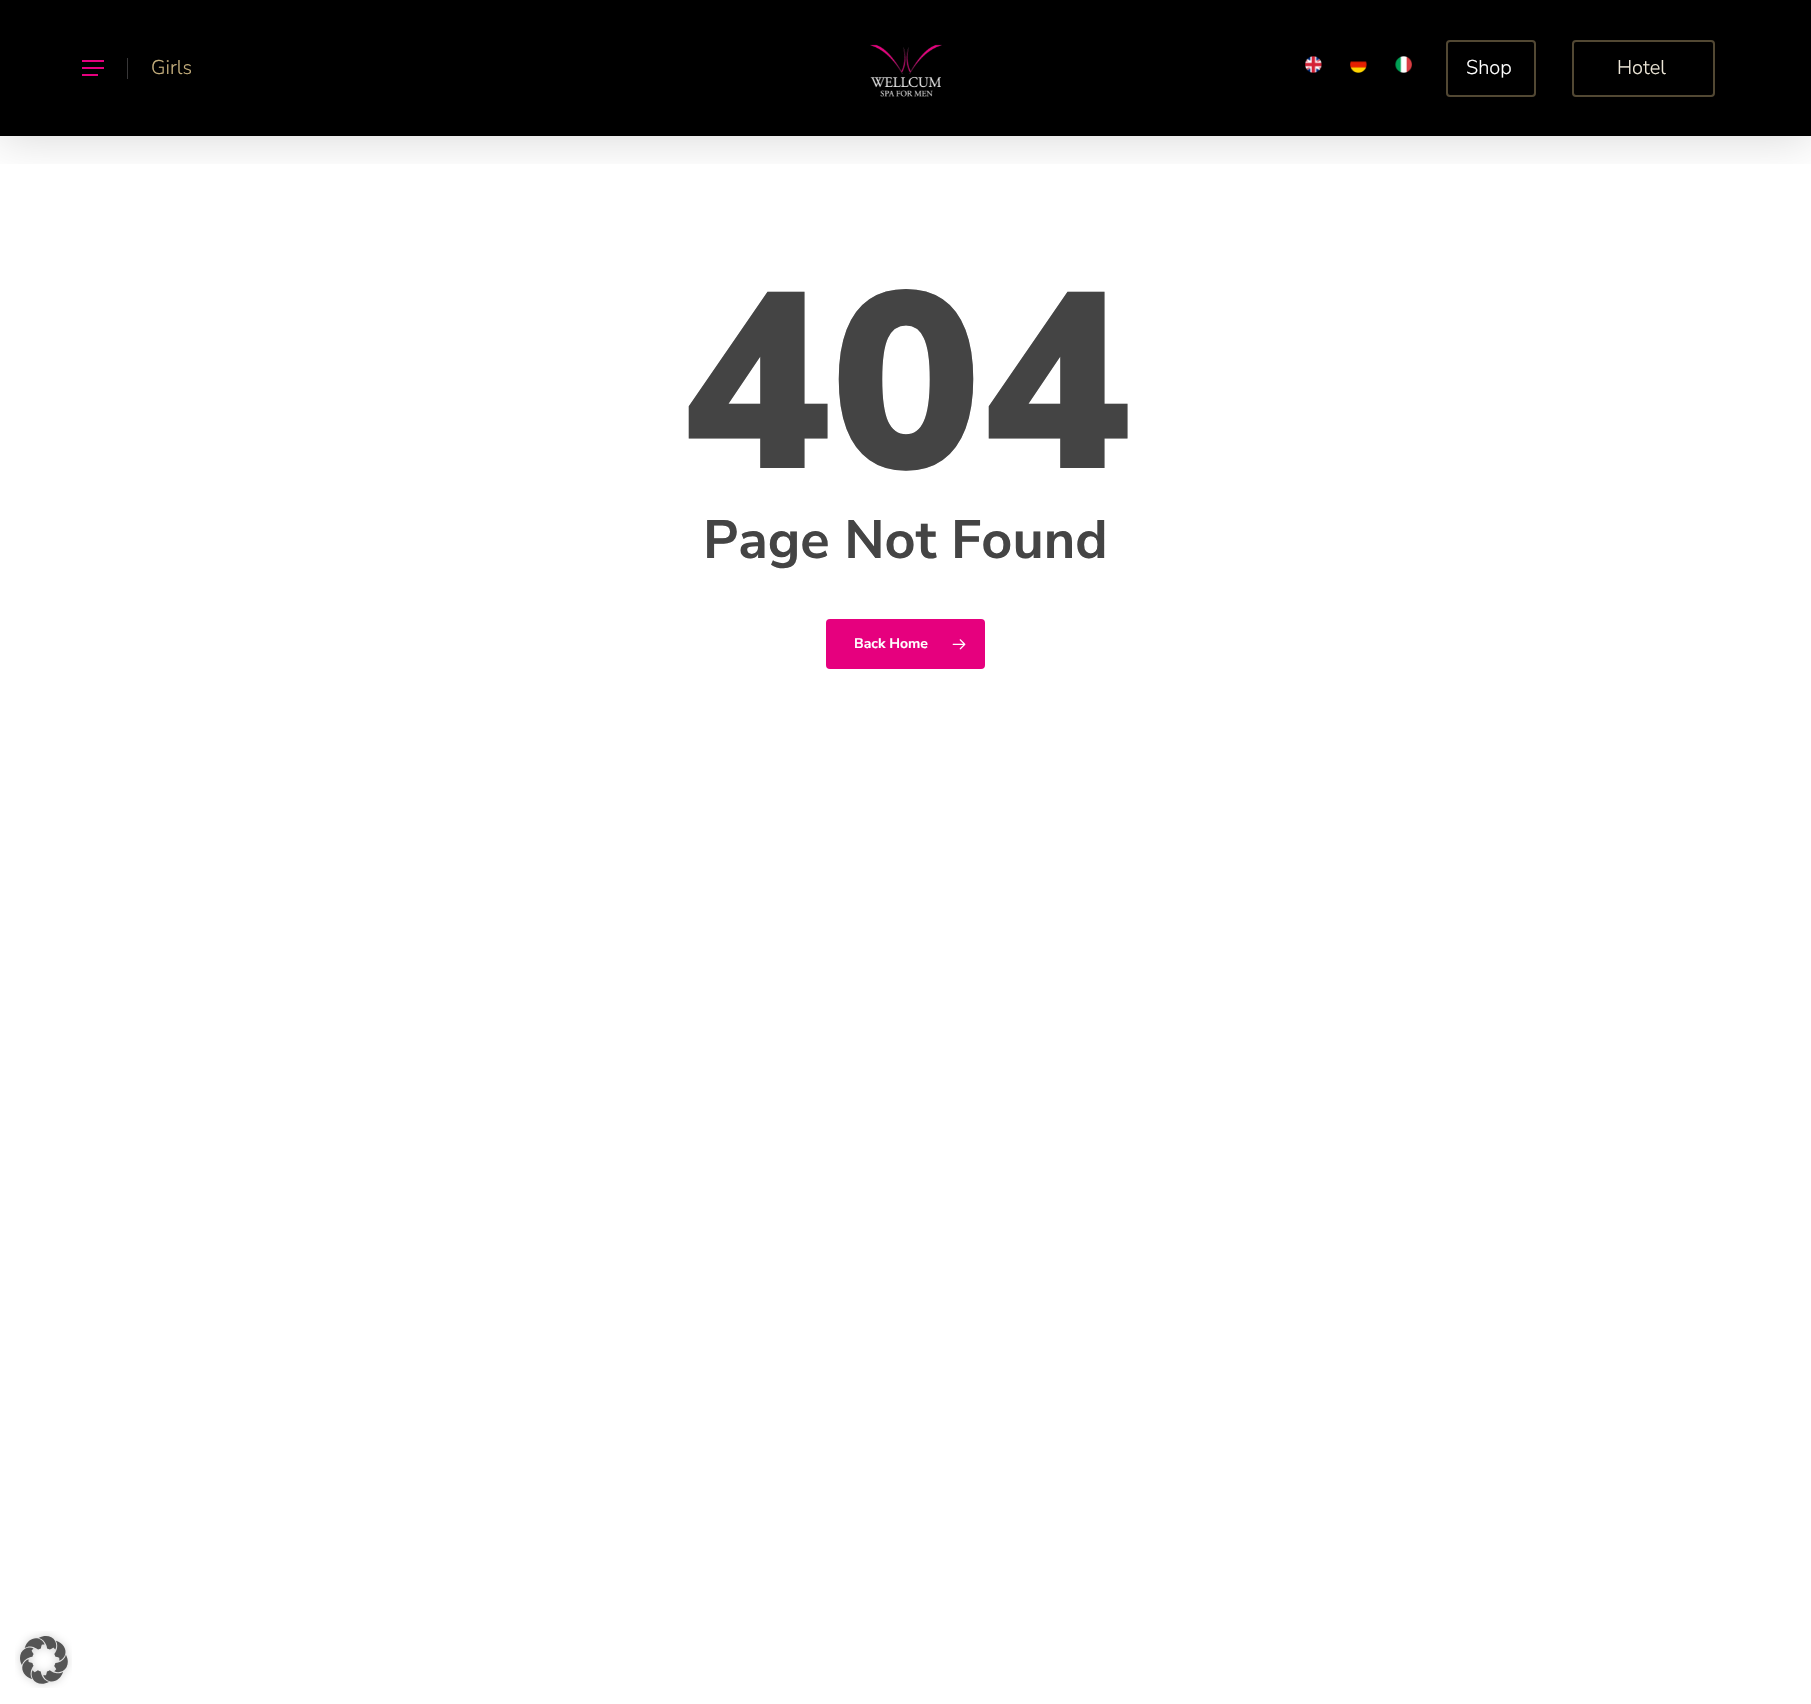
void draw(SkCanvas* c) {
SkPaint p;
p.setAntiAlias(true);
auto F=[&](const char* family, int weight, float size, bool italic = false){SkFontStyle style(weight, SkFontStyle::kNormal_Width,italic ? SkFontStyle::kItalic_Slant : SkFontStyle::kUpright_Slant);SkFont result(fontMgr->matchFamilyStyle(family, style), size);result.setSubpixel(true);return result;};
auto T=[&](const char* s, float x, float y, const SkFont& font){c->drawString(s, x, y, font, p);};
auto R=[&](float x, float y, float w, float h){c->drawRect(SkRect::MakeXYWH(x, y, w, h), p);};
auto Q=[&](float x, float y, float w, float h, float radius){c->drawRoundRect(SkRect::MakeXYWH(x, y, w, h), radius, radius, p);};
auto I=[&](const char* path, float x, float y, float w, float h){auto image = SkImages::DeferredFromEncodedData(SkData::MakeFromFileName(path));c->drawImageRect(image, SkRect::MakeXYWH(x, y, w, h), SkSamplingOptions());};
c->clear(0xffffffff);
p.setColor(0xff000000);
R(0,0,1811,136);
c->save();
c->clipRect(SkRect::MakeXYWH(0,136,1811,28));
p.setColor(0x26000000);
p.setMaskFilter(SkMaskFilter::MakeBlur(kNormal_SkBlurStyle, 22.5));
c->drawRect(SkRect::MakeXYWH(0,3,1811,136),p);
p.setMaskFilter(nullptr);
c->restore();
p.setColor(0xff383738);
R(127,58,1,21);
p.setColor(0xffe6007e);
R(82,60,22,2);
R(82,74,16,2);
R(82,67,22,2);
auto f1 = F("Nunito Sans",300,20);
p.setColor(0xffc3ad7b);
T("Girls",151,74,f1);
I("1.png",870,44,72,53);
I("2.png",1305,56,17,17);
I("3.png",1350,61,17,12);
I("4.png",1395,56,17,17);
p.setStroke(true);
p.setStrokeWidth(2);
p.setColor(0xff524833);
c->drawRoundRect(SkRect::MakeXYWH(1447,41,88,55),3,3,p);
p.setStroke(false);
p.setColor(0xffffffff);
T("Shop",1466,74,f1);
p.setStroke(true);
p.setColor(0xff524833);
c->drawRoundRect(SkRect::MakeXYWH(1573,41,141,55),3,3,p);
p.setStroke(false);
p.setColor(0xffede7d8);
T("Hotel",1617,74,f1);
auto f2 = F("Nunito Sans",900,250);
p.setColor(0xff444444);
T("404",681,468,f2);
auto f3 = F("Nunito Sans",700,54);
T("Page Not Found",703,558,f3);
p.setColor(0xffe6007e);
Q(826,619,159,50,4);
auto f4 = F("Nunito Sans",700,14);
p.setColor(0xffffffff);
T("Back Home",854,648,f4);
I("5.png",952,639,14,11);
I("6.png",15,1631,57,57);
}
